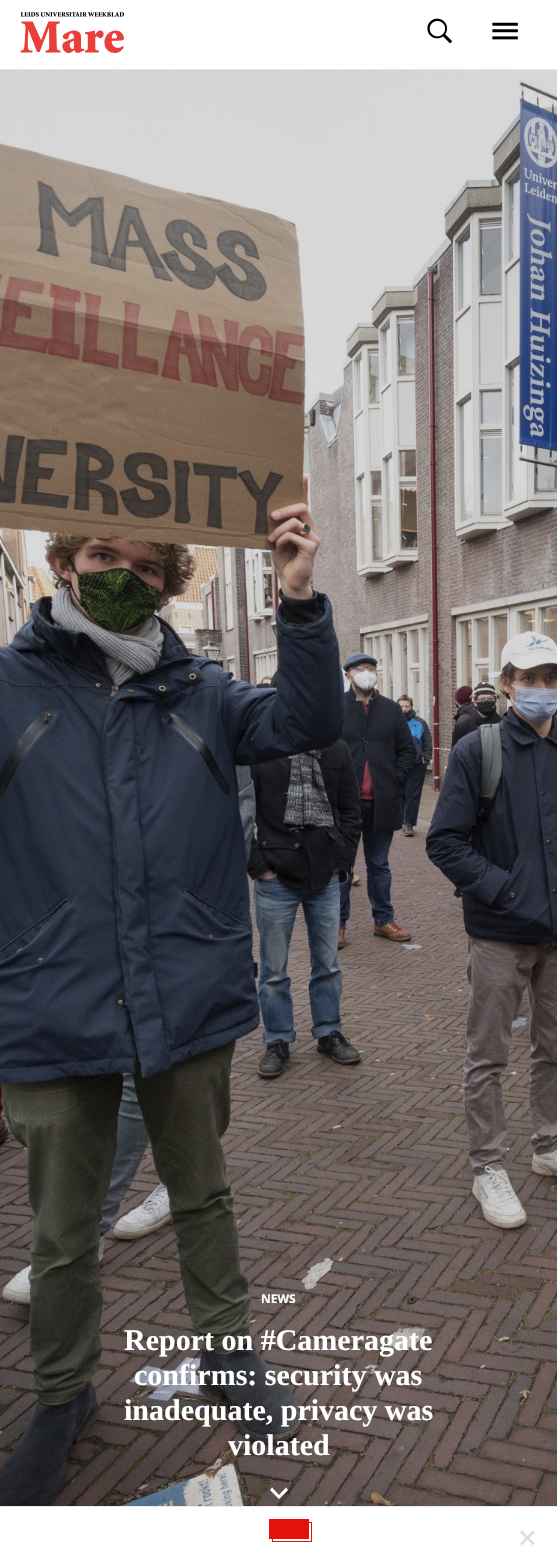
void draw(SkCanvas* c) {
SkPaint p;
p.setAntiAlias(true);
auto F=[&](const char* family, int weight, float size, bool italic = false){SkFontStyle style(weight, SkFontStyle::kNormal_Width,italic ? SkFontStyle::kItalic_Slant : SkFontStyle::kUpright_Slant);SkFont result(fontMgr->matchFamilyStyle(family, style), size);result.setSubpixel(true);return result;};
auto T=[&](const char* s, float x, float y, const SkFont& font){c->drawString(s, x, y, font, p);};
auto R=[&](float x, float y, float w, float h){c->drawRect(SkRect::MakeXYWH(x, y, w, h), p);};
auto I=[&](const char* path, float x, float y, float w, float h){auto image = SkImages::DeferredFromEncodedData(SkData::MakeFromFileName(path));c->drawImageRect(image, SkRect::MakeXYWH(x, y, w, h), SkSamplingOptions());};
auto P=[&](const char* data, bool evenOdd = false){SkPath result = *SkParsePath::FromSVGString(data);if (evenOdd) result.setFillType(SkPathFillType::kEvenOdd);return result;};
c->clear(0xffffffff);
p.setColor(0xffe5e5e5);
R(0,69,557,1);
I("1.png",20,12,104,41);
I("2.png",427,18,26,26);
I("3.png",492,22,26,18);
I("4.png",0,70,557,1436);
auto f1 = F("Open Sans",700,12);
p.setColor(0xffffffff);
T("NEWS",261,1303,f1);
auto f2 = F("Liberation Serif",700,30);
T("Report on #Cameragate",124,1350,f2);
T("confirms: security was",134,1385,f2);
T("inadequate, privacy was",124,1420,f2);
T("violated",228,1455,f2);
c->drawPath(P("M272 1487.5l-2 2.5l9 9l9-9l-2-2.5l-7 7.5z"),p);
p.setColor(0xffe9e9e9);
R(0,1506,557,1);
p.setStroke(true);
p.setStrokeWidth(1);
p.setColor(0xffe41209);
c->drawRect(SkRect::MakeXYWH(272.5,1522.5,39,19),p);
p.setStroke(false);
R(269,1519,40,20);
auto f3 = F("DejaVu Sans",400,25);
p.setColor(0xffdddddd);
T("✕",517,1547,f3);
}
